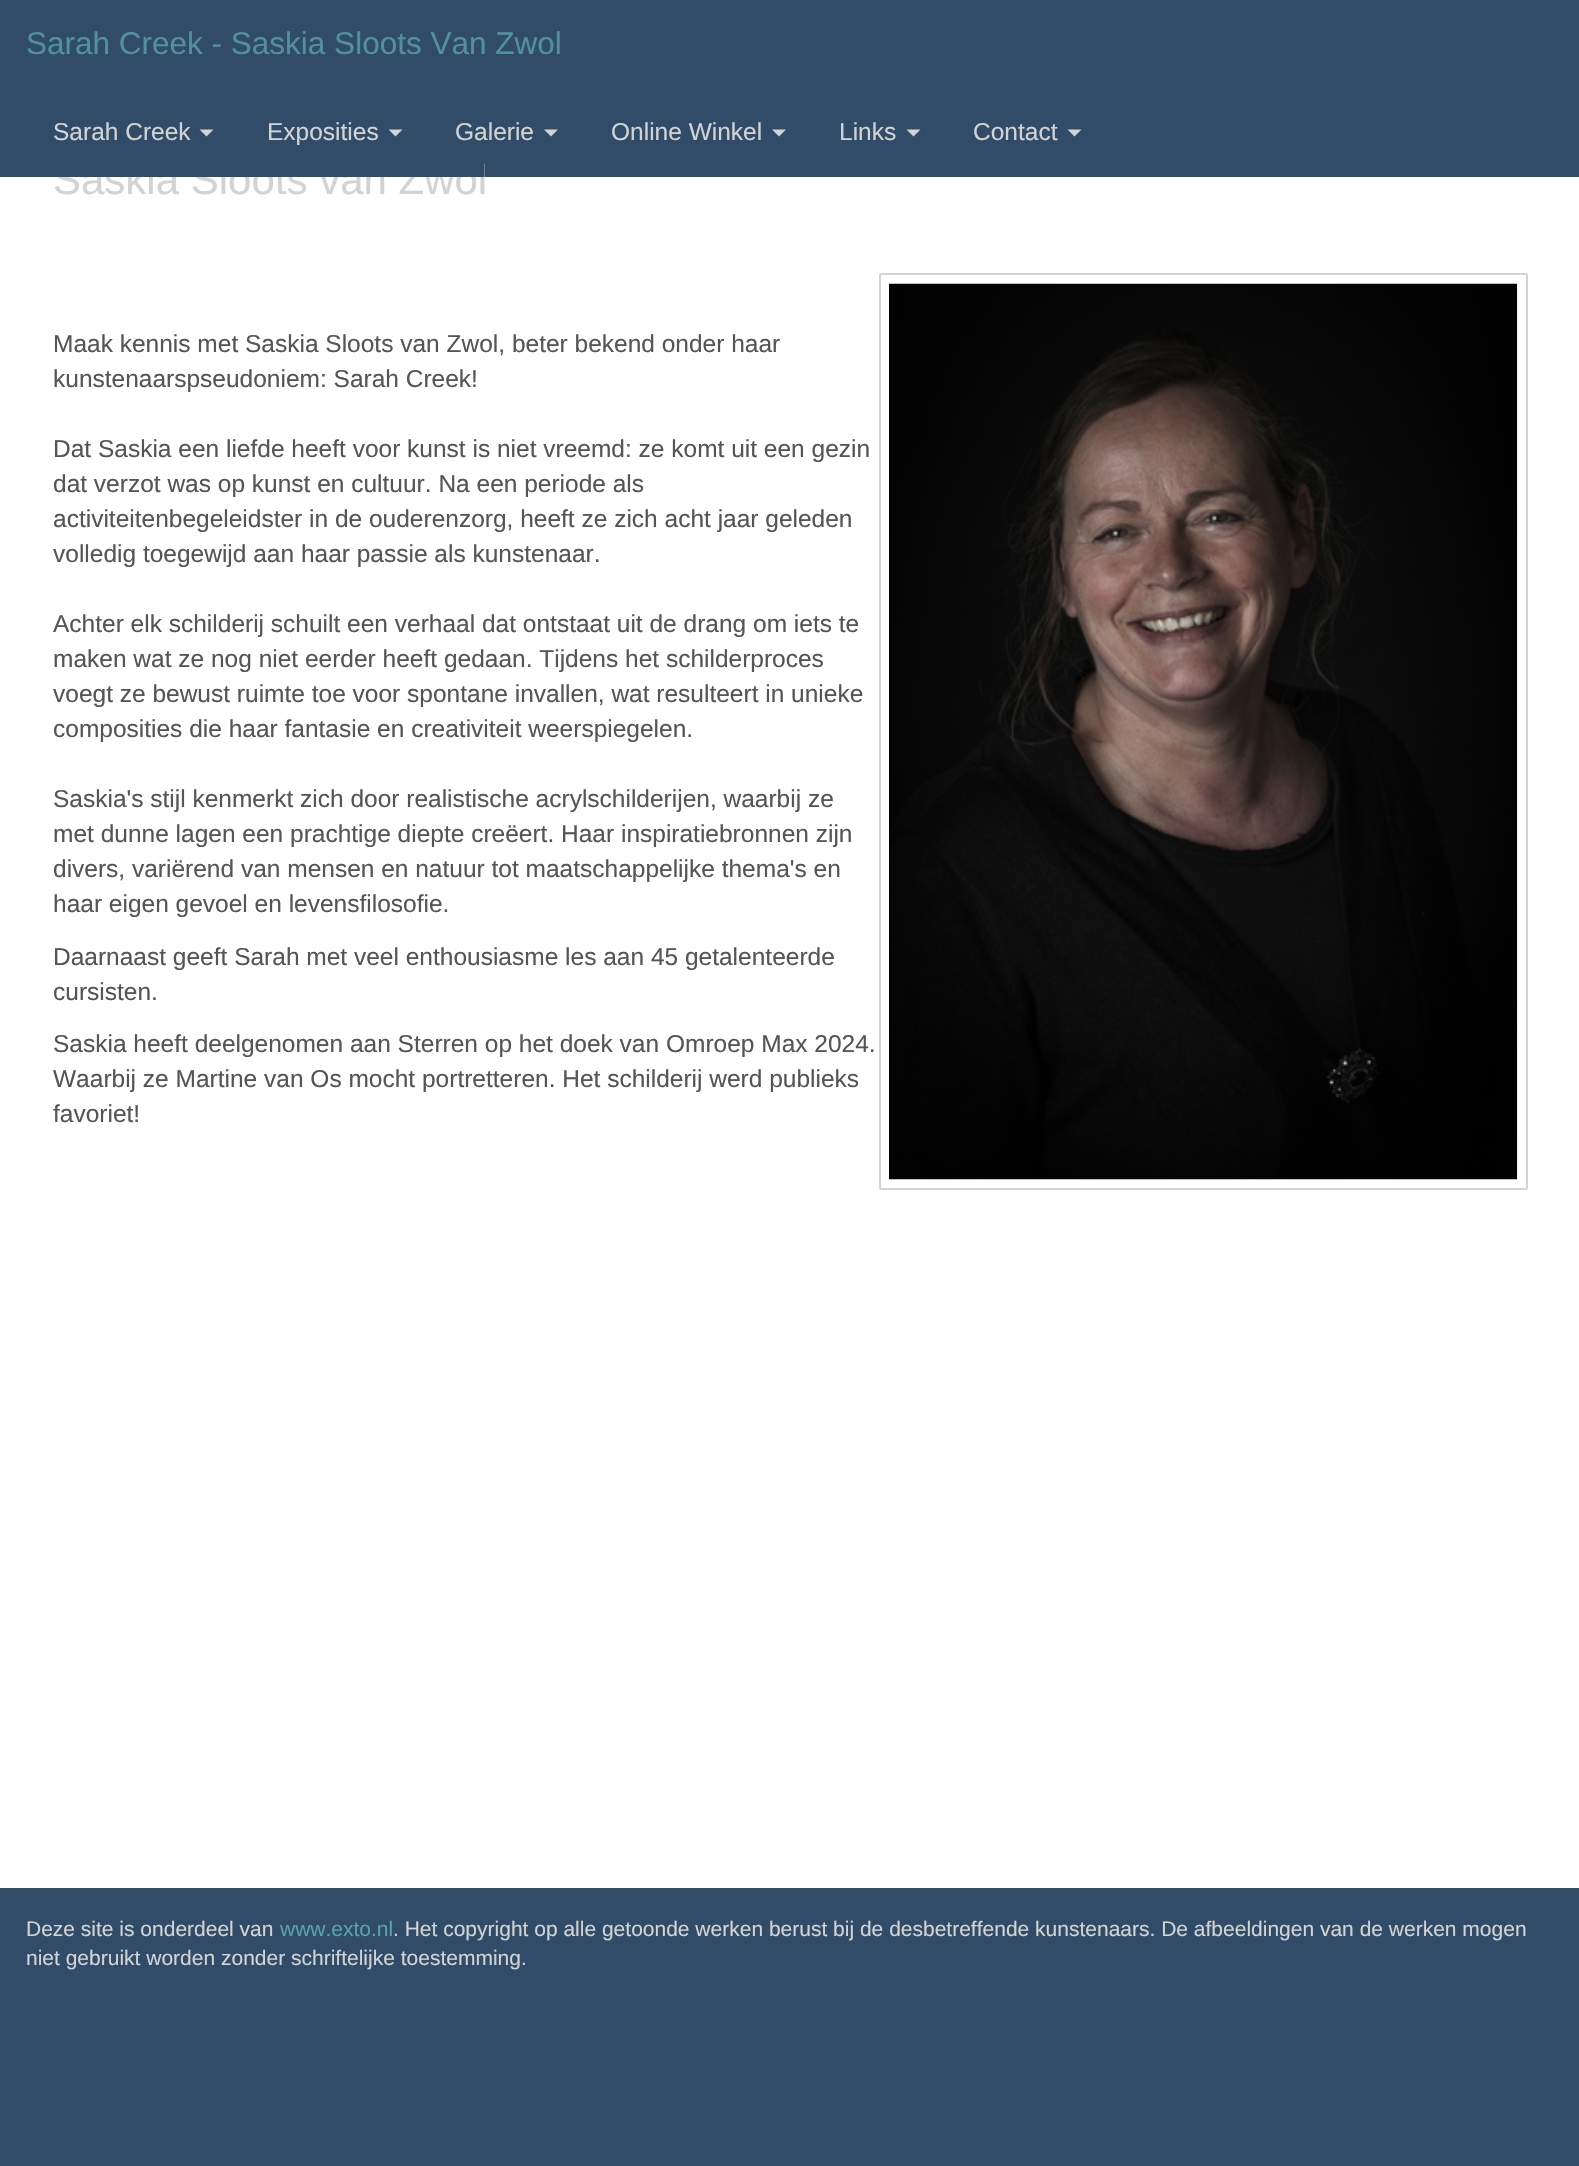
void draw(SkCanvas* c) {
SkPaint p;
p.setAntiAlias(true);
auto F=[&](const char* family, int weight, float size, bool italic = false){SkFontStyle style(weight, SkFontStyle::kNormal_Width,italic ? SkFontStyle::kItalic_Slant : SkFontStyle::kUpright_Slant);SkFont result(fontMgr->matchFamilyStyle(family, style), size);result.setSubpixel(true);return result;};
auto T=[&](const char* s, float x, float y, const SkFont& font){c->drawString(s, x, y, font, p);};
auto R=[&](float x, float y, float w, float h){c->drawRect(SkRect::MakeXYWH(x, y, w, h), p);};
auto I=[&](const char* path, float x, float y, float w, float h){auto image = SkImages::DeferredFromEncodedData(SkData::MakeFromFileName(path));c->drawImageRect(image, SkRect::MakeXYWH(x, y, w, h), SkSamplingOptions());};
auto P=[&](const char* data, bool evenOdd = false){SkPath result = *SkParsePath::FromSVGString(data);if (evenOdd) result.setFillType(SkPathFillType::kEvenOdd);return result;};
c->clear(0xff314c68);
p.setColor(0xffffffff);
R(0,177,1579,1711);
auto f1 = F("Liberation Sans",400,42);
p.setColor(0xffd3d3d3);
T("Saskia Sloots van Zwol",53,194,f1);
p.setColor(0xff314c68);
R(55,163,429,12);
R(56,175,428,2);
auto f2 = F("Liberation Sans",400,31.5);
p.setColor(0xff53909e);
T("Sarah Creek - Saskia Sloots Van Zwol",26,54,f2);
auto f3 = F("Liberation Sans",400,24.5);
p.setColor(0xffd3d3d3);
T("Sarah Creek",53,140,f3);
c->drawPath(P("M199.5 129.5h14l-7 7z"),p);
T("Exposities",267,140,f3);
c->drawPath(P("M388.5 129.5h14l-7 7z"),p);
T("Galerie",455,140,f3);
c->drawPath(P("M544 129.5h14l-7 7z"),p);
T("Online Winkel",611,140,f3);
c->drawPath(P("M772 129.5h14l-7 7z"),p);
T("Links",839,140,f3);
c->drawPath(P("M906.5 129.5h14l-7 7z"),p);
T("Contact",973,140,f3);
c->drawPath(P("M1067.5 129.5h14l-7 7z"),p);
p.setColor(0xff555555);
T("Maak kennis met Saskia Sloots van Zwol, beter bekend onder haar",53,352,f3);
T("kunstenaarspseudoniem: Sarah Creek!",53,387,f3);
T("Dat Saskia een liefde heeft voor kunst is niet vreemd: ze komt uit een gezin",53,457,f3);
T("dat verzot was op kunst en cultuur. Na een periode als",53,492,f3);
T("activiteitenbegeleidster in de ouderenzorg, heeft ze zich acht jaar geleden",53,527,f3);
T("volledig toegewijd aan haar passie als kunstenaar.",53,562,f3);
T("Achter elk schilderij schuilt een verhaal dat ontstaat uit de drang om iets te",53,632,f3);
T("maken wat ze nog niet eerder heeft gedaan. Tijdens het schilderproces",53,667,f3);
T("voegt ze bewust ruimte toe voor spontane invallen, wat resulteert in unieke",53,702,f3);
T("composities die haar fantasie en creativiteit weerspiegelen.",53,737,f3);
T("Saskia's stijl kenmerkt zich door realistische acrylschilderijen, waarbij ze",53,807,f3);
T("met dunne lagen een prachtige diepte creëert. Haar inspiratiebronnen zijn",53,842,f3);
T("divers, variërend van mensen en natuur tot maatschappelijke thema's en",53,877,f3);
T("haar eigen gevoel en levensfilosofie.",53,912,f3);
T("Daarnaast geeft Sarah met veel enthousiasme les aan 45 getalenteerde",53,965,f3);
T("cursisten.",53,1000,f3);
T("Saskia heeft deelgenomen aan Sterren op het doek van Omroep Max 2024.",53,1052,f3);
T("Waarbij ze Martine van Os mocht portretteren. Het schilderij werd publieks",53,1087,f3);
T("favoriet!",53,1122,f3);
p.setStroke(true);
p.setStrokeWidth(2);
p.setColor(0xffd3d3d3);
c->drawRoundRect(SkRect::MakeXYWH(880,274,647,915),1,1,p);
I("1.png",889,283,629,897);
auto f4 = F("Liberation Sans",400,21);
p.setStroke(false);
T("Deze site is onderdeel van",26,1936,f4);
p.setColor(0xff5ba1ac);
T("www.exto.nl",280,1936,f4);
p.setColor(0xffd3d3d3);
T(". Het copyright op alle getoonde werken berust bij de desbetreffende kunstenaars. De afbeeldingen van de werken mogen",393,1936,f4);
T("niet gebruikt worden zonder schriftelijke toestemming.",26,1965,f4);
}
